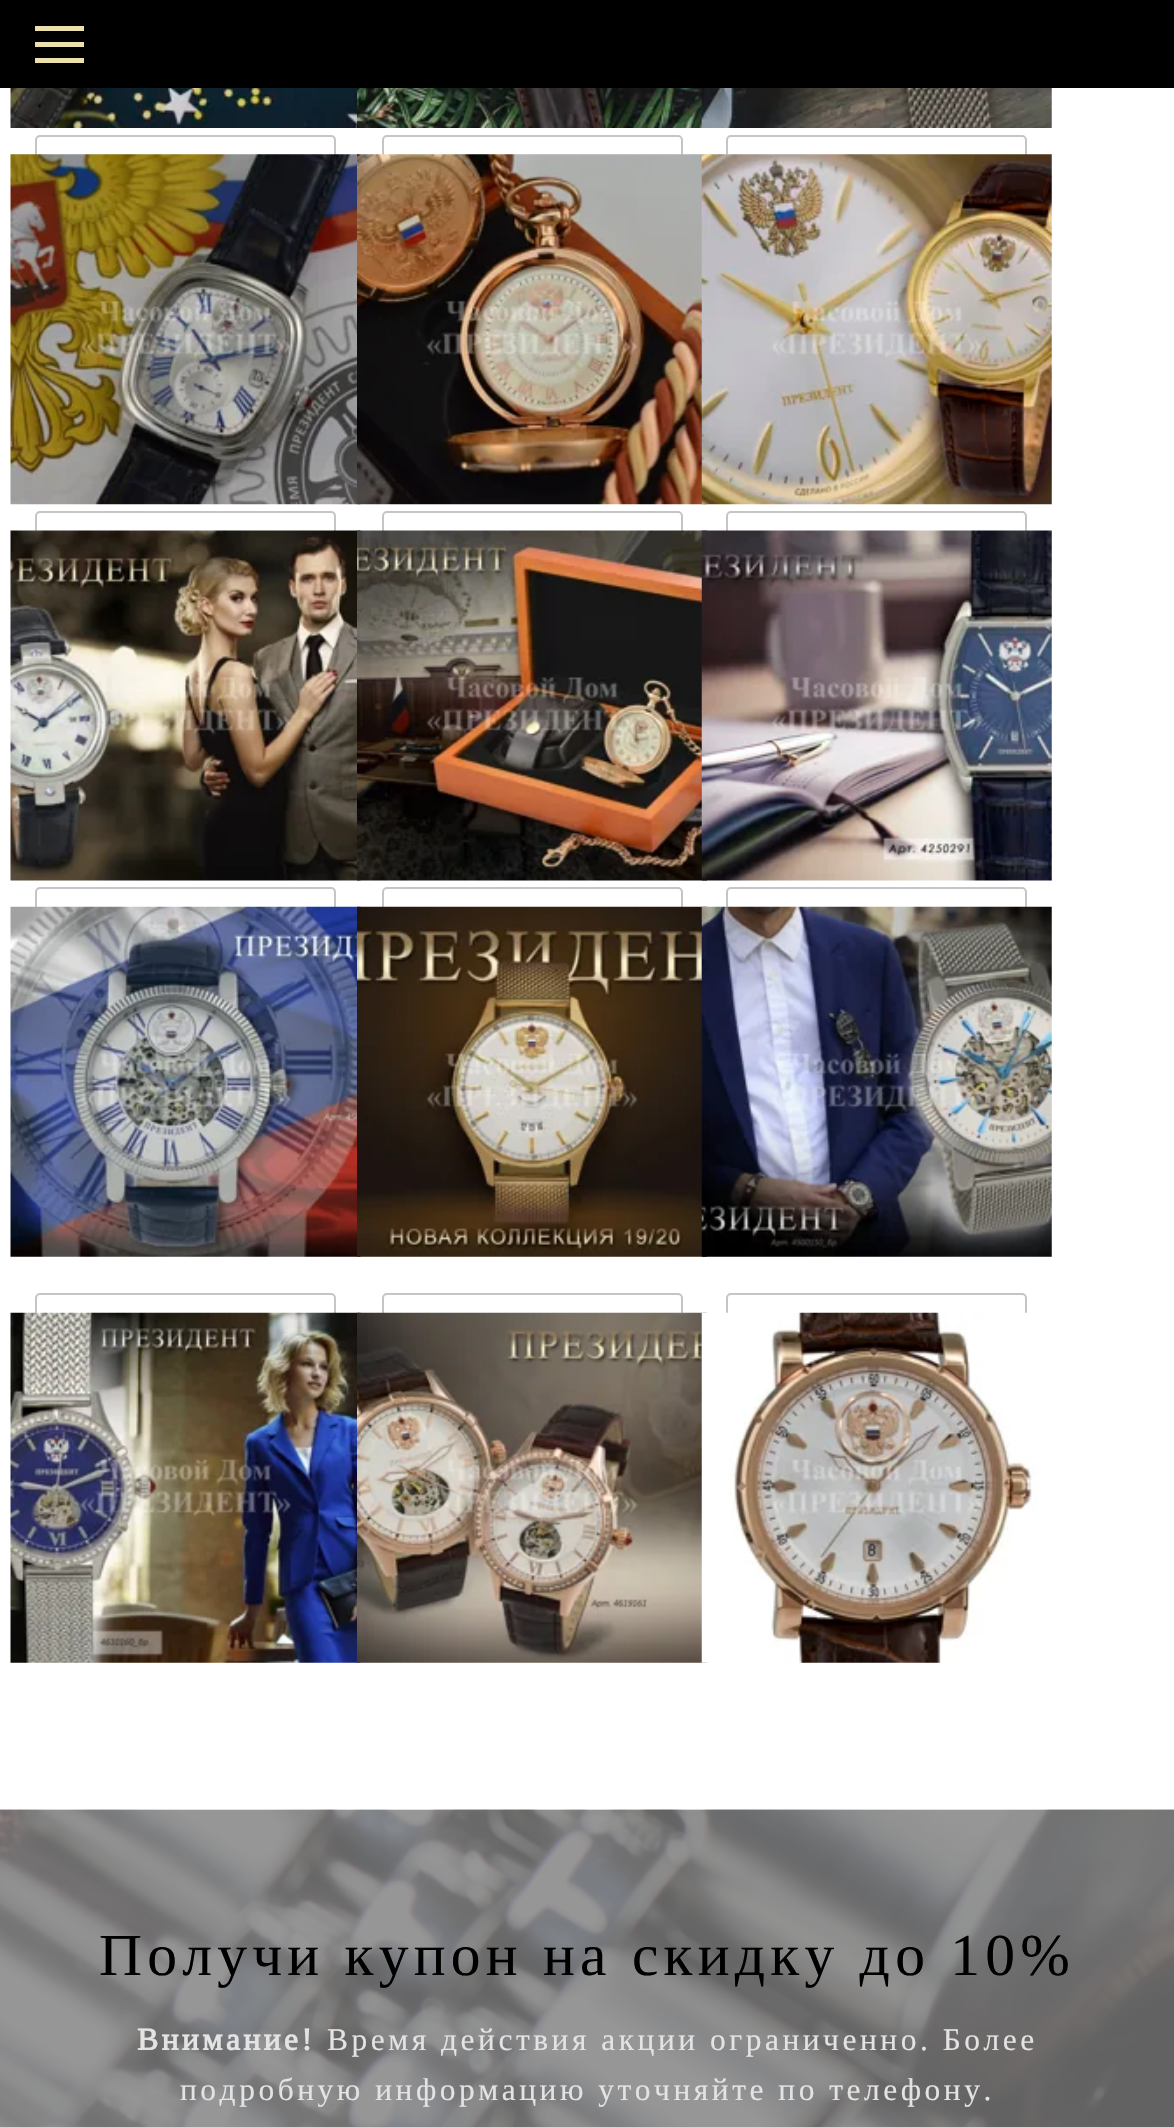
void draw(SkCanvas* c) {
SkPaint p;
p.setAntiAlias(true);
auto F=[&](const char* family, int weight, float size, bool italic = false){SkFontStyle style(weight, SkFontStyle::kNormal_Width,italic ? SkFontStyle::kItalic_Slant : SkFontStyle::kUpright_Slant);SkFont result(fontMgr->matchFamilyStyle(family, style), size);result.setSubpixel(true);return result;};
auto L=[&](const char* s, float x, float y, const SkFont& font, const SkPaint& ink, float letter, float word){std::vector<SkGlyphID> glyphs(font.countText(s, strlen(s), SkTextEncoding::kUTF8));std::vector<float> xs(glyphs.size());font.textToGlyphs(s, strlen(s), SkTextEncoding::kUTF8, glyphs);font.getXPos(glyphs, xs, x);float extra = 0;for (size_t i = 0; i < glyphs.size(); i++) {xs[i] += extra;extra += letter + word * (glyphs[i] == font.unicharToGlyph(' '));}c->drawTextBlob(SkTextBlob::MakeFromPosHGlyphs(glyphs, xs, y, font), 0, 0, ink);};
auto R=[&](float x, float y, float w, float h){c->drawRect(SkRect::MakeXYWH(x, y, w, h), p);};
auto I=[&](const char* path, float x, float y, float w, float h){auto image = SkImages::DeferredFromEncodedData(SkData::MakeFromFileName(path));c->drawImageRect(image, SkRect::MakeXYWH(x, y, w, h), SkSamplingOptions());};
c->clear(0xffffffff);
p.setColor(0xff000000);
R(0,0,1174,88);
p.setColor(0xffede1ab);
R(35,26,49,5);
R(35,42,49,5);
R(35,58,49,5);
I("1.png",10,88,347,40);
I("2.png",357,88,345,40);
I("3.png",701,88,351,40);
p.setStroke(true);
p.setStrokeWidth(2);
p.setColor(0xffc5c5c5);
c->drawRoundRect(SkRect::MakeXYWH(36,136,299,299),4,4,p);
I("4.png",10,154,351,351);
c->drawRoundRect(SkRect::MakeXYWH(383,136,299,299),4,4,p);
I("5.png",357,154,350,351);
c->drawRoundRect(SkRect::MakeXYWH(727,136,299,299),4,4,p);
I("6.png",701,154,351,351);
c->drawRoundRect(SkRect::MakeXYWH(36,512,299,299),4,4,p);
I("7.png",10,530,351,351);
c->drawRoundRect(SkRect::MakeXYWH(383,512,299,299),4,4,p);
I("8.png",357,530,350,351);
c->drawRoundRect(SkRect::MakeXYWH(727,512,299,299),4,4,p);
I("9.png",701,530,351,351);
c->drawRoundRect(SkRect::MakeXYWH(36,888,299,299),4,4,p);
I("10.png",10,906,351,351);
c->drawRoundRect(SkRect::MakeXYWH(383,888,299,299),4,4,p);
I("11.png",357,906,350,351);
c->drawRoundRect(SkRect::MakeXYWH(727,888,299,299),4,4,p);
I("12.png",701,906,351,351);
c->drawRoundRect(SkRect::MakeXYWH(36,1294,299,299),4,4,p);
I("13.png",10,1312,351,351);
c->drawRoundRect(SkRect::MakeXYWH(383,1294,299,299),4,4,p);
I("14.png",357,1312,350,351);
c->drawRoundRect(SkRect::MakeXYWH(727,1294,299,299),4,4,p);
I("15.png",701,1312,337,351);
I("16.png",0,1809,1174,318);
auto f1 = F("Tinos",400,59.5);
p.setStroke(false);
p.setColor(0xff000000);
L("Получи купон на скидку до 10%",99,1975,f1,p,5.25,0);
auto f2 = F("Tinos",700,31.5);
p.setColor(0xffe3e3e3);
L("Внимание!",137,2050,f2,p,3.5,0);
auto f3 = F("Tinos",400,31.5);
L("Время действия акции ограниченно. Более",327,2050,f3,p,3.5,0);
L("подробную информацию уточняйте по телефону.",180,2100,f3,p,3.5,0);
}
